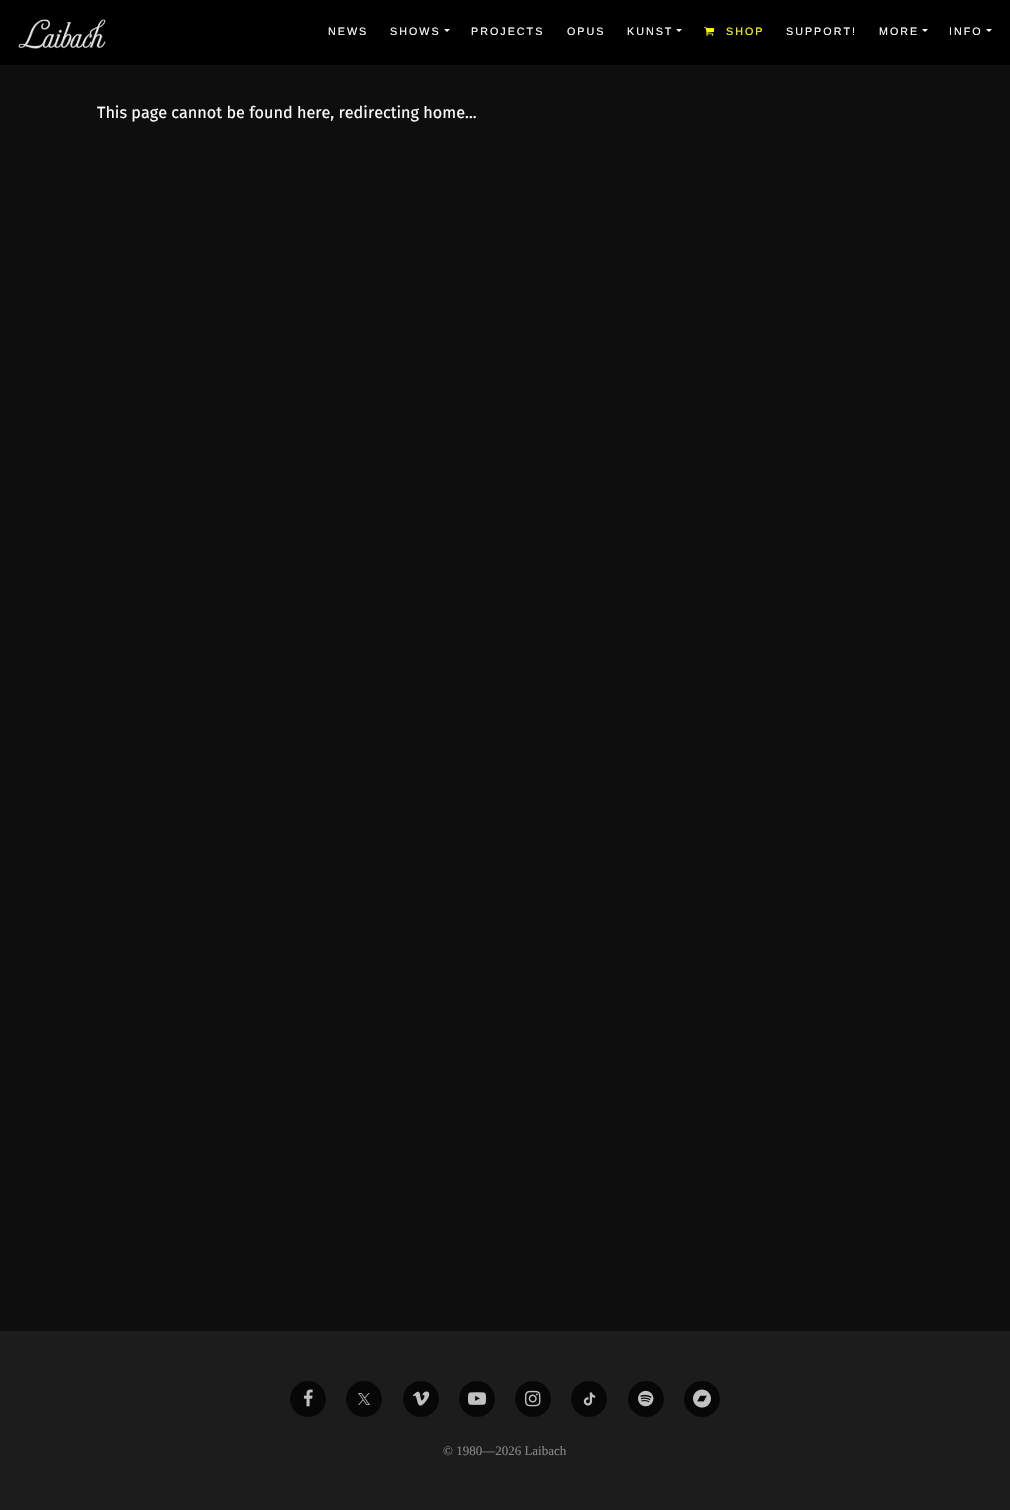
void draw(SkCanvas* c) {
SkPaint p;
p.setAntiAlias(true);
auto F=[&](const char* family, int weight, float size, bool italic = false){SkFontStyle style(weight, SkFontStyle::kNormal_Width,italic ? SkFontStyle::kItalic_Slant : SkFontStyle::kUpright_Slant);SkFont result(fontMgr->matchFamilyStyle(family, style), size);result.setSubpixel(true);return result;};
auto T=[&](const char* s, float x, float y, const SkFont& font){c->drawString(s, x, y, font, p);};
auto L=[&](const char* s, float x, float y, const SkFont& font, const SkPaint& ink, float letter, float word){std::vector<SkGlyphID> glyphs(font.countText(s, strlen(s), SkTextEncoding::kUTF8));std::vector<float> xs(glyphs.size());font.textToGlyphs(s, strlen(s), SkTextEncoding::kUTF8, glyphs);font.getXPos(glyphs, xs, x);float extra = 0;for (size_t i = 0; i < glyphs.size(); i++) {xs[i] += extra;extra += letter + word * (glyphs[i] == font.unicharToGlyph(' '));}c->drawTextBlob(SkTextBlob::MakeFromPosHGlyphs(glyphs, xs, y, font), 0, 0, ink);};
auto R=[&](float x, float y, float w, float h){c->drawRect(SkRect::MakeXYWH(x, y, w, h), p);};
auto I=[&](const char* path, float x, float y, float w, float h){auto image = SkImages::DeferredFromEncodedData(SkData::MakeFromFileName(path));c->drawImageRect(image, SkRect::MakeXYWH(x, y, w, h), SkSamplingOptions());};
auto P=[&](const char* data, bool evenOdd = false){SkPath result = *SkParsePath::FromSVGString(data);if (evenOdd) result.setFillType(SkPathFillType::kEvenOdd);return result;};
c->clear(0xff0e0e0e);
p.setColor(0xff000000);
R(0,0,1010,65);
I("1.png",18,19,88,30);
auto f1 = F("Liberation Sans",400,10.75);
p.setColor(0xffffffff);
L("NEWS",328,35,f1,p,2,0);
L("SHOWS",390,35,f1,p,2,0);
c->drawPath(P("M444 29h6l-3 3z"),p);
L("PROJECTS",471,35,f1,p,2,0);
L("OPUS",567,35,f1,p,2,0);
L("KUNST",627,35,f1,p,2,0);
c->drawPath(P("M676 29h6l-3 3z"),p);
I("2.png",704,27,11,9);
p.setColor(0xffffff00);
L("SHOP",726,35,f1,p,2,0);
p.setColor(0xffffffff);
L("SUPPORT!",786,35,f1,p,2,0);
L("MORE",879,35,f1,p,2,0);
c->drawPath(P("M922 29h6l-3 3z"),p);
L("INFO",949,35,f1,p,2,0);
c->drawPath(P("M986 29h6l-3 3z"),p);
auto f2 = F("Fira Sans",400,16.2);
T("This page cannot be found here, redirecting home...",97,118,f2);
p.setColor(0xff1c1c1c);
R(0,1331,1010,179);
p.setColor(0xff070707);
c->drawCircle(308,1399,18,p);
I("3.png",303,1389,10,18);
c->drawCircle(364,1399,18,p);
I("4.png",358,1393,12,12);
c->drawCircle(421,1399,18,p);
I("5.png",412,1391,18,15);
c->drawCircle(477,1399,18,p);
I("6.png",468,1392,18,13);
c->drawCircle(533,1399,18,p);
I("7.png",525,1390,16,17);
c->drawCircle(589,1399,18,p);
I("8.png",583,1392,13,14);
c->drawCircle(646,1399,18,p);
I("9.png",638,1390,16,17);
c->drawCircle(702,1399,18,p);
I("10.png",693,1389,18,19);
auto f3 = F("Liberation Serif",400,13);
p.setColor(0xff888888);
T("© 1980—2026 Laibach",443,1455,f3);
}
